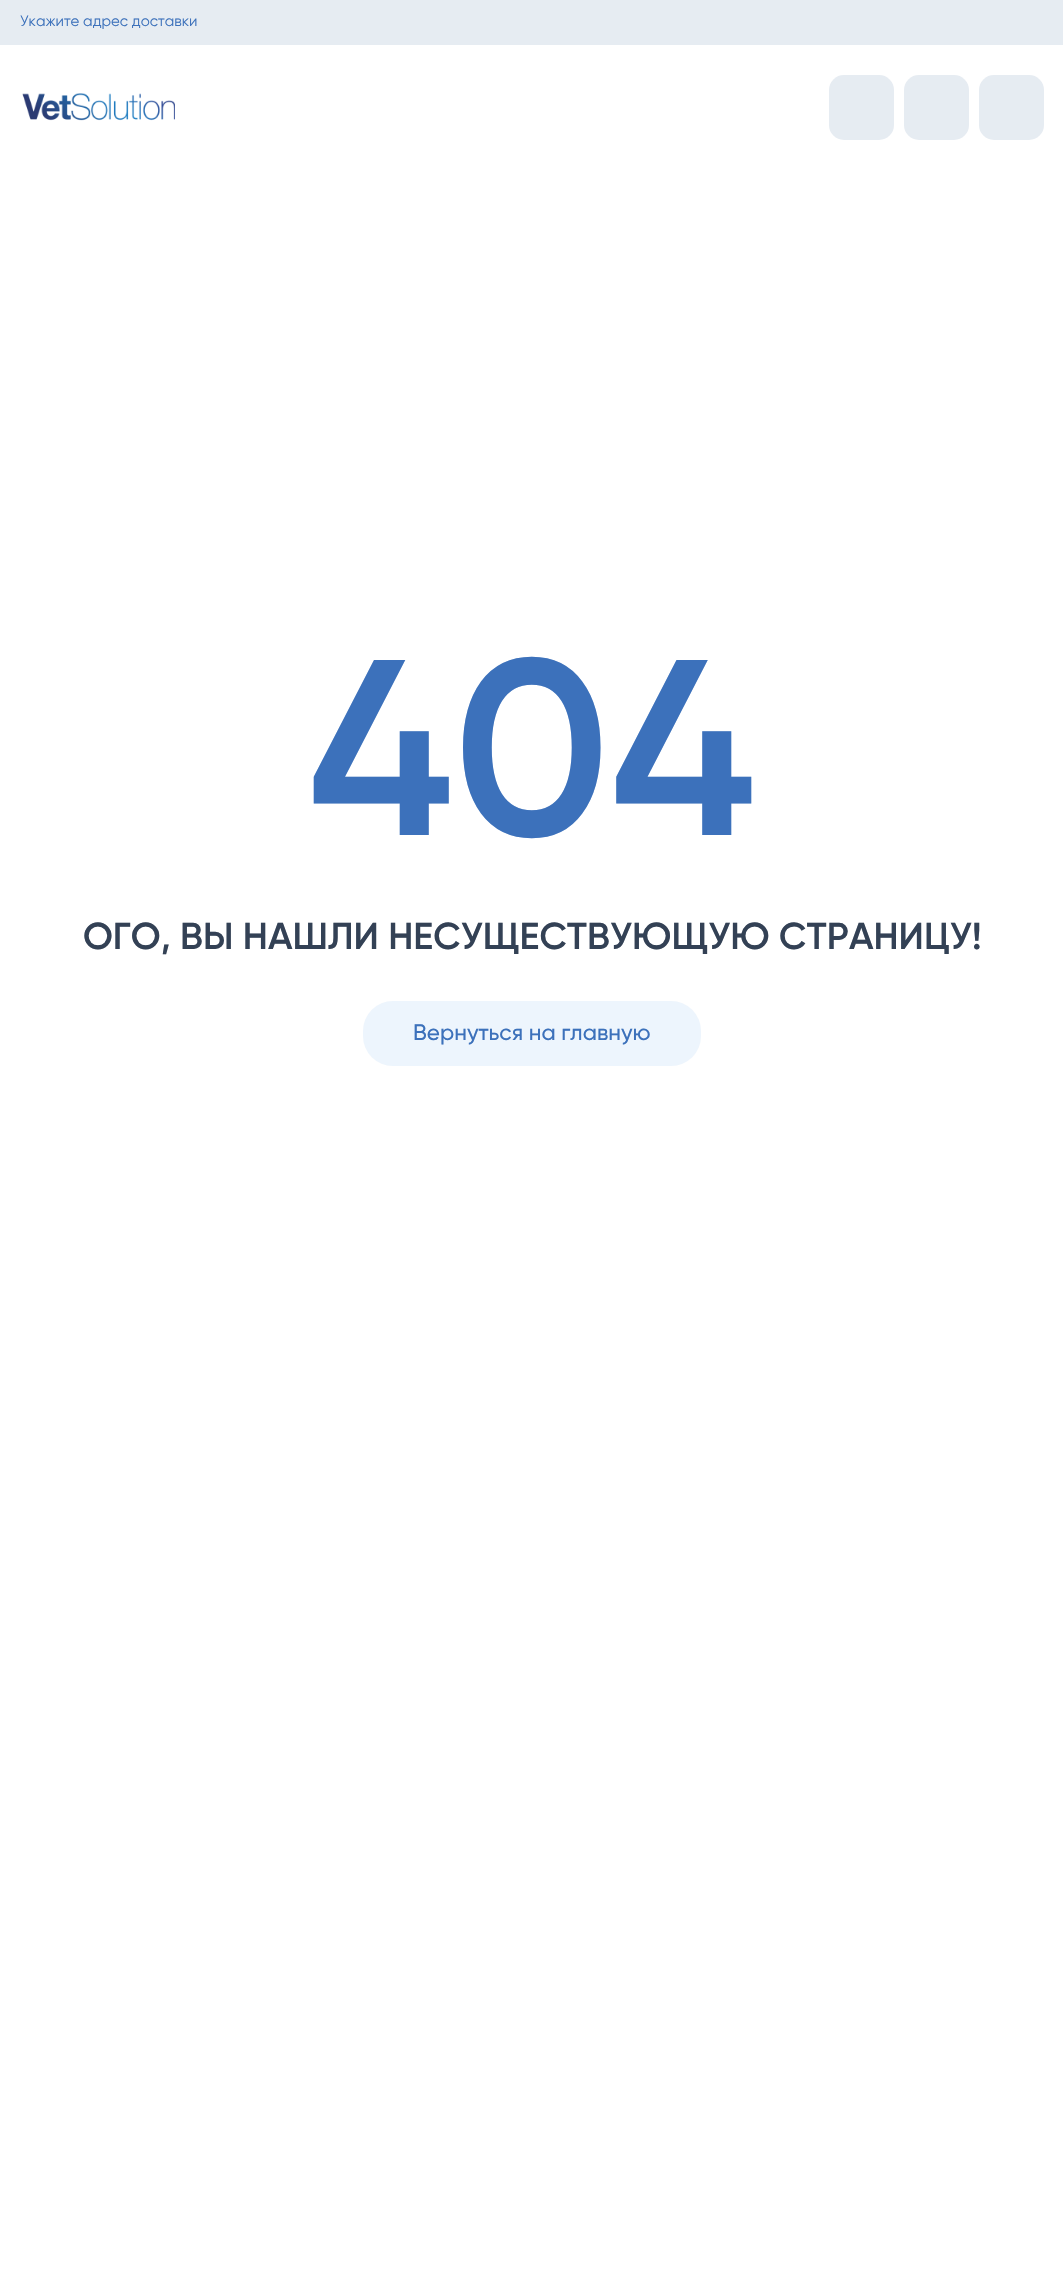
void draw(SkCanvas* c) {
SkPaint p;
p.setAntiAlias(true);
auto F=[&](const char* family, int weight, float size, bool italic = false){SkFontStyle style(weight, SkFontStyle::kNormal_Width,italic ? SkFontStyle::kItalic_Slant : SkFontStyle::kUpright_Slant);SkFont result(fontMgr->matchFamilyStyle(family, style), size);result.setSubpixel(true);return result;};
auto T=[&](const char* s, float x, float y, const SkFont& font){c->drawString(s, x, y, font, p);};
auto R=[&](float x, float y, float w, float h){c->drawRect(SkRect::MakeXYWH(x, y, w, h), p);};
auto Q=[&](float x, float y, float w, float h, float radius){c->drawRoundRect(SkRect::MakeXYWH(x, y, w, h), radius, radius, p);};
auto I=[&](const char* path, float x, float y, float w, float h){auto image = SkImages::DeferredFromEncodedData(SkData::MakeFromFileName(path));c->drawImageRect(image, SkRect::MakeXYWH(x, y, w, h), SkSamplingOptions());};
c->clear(0xffffffff);
p.setColor(0xffe6ecf2);
R(0,0,1063,45);
auto f1 = F("Gilroy",400,15);
p.setColor(0xff3c71bb);
T("Укажите адрес доставки",20,26,f1);
I("1.png",22,93,153,28);
p.setColor(0xffe6ecf2);
Q(829,75,65,65,15);
Q(904,75,65,65,15);
Q(979,75,65,65,15);
auto f2 = F("Gilroy",600,250);
p.setColor(0xff3c71bb);
T("404",308,835,f2);
auto f3 = F("Gilroy",600,37.5);
p.setColor(0xff334155);
T("ОГО, ВЫ НАШЛИ НЕСУЩЕСТВУЮЩУЮ СТРАНИЦУ!",83,949,f3);
p.setColor(0xffedf5fd);
Q(363,1001,338,65,30);
auto f4 = F("Gilroy",500,22.5);
p.setColor(0xff3c71bb);
T("Вернуться на главную",413,1040,f4);
}
